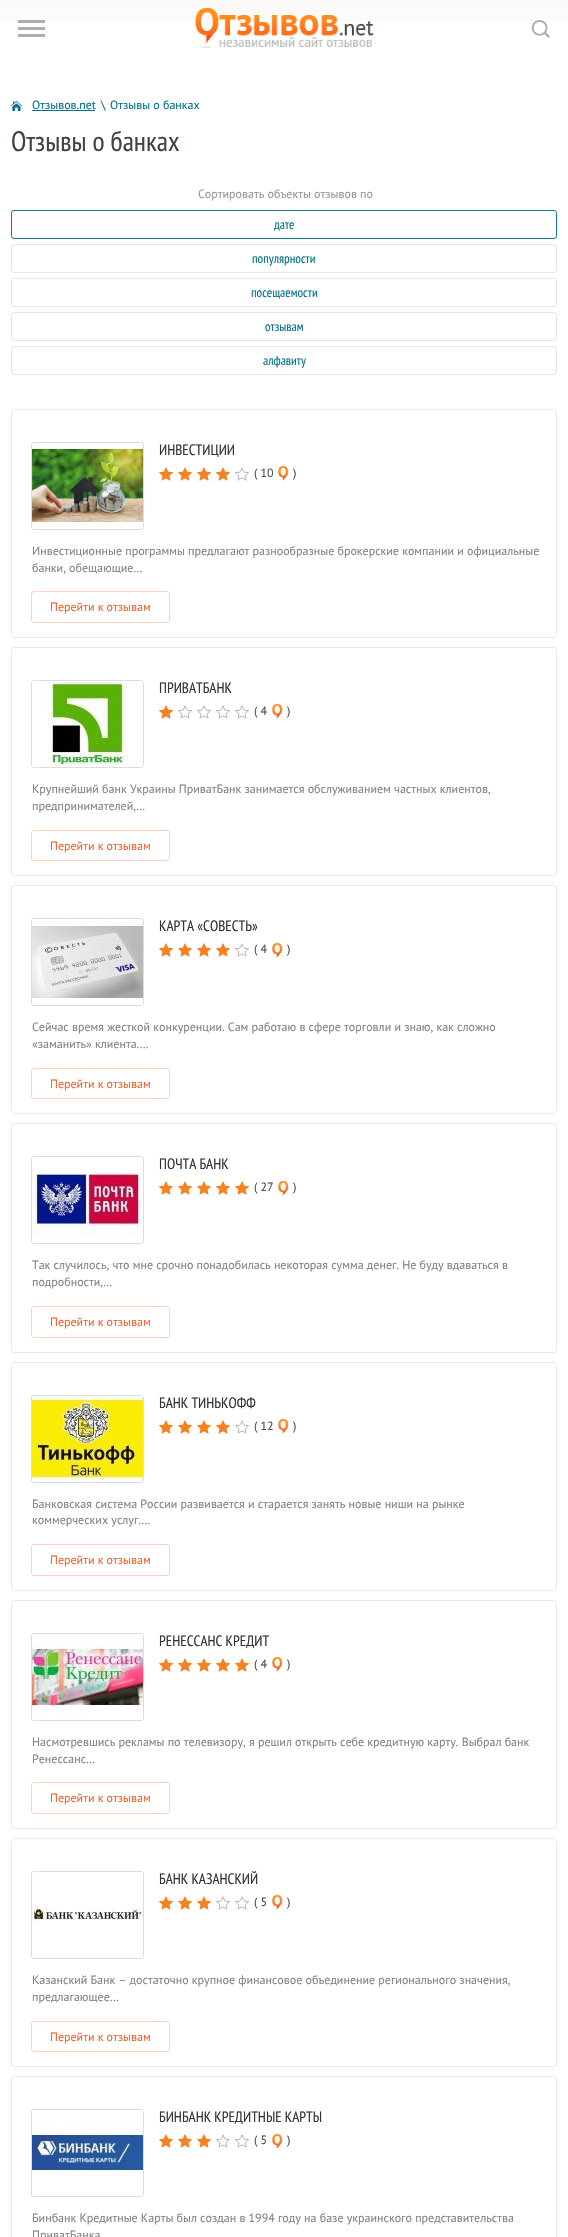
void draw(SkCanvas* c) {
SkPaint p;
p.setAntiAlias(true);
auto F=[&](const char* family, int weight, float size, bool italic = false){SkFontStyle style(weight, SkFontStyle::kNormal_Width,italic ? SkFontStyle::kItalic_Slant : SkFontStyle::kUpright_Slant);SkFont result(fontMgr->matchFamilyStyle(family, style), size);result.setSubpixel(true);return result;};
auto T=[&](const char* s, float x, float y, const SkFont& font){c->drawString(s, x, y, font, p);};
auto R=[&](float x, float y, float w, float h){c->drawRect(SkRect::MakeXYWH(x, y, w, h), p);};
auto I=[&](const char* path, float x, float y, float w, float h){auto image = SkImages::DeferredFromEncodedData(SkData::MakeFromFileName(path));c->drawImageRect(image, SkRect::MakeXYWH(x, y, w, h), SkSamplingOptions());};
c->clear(0xffffffff);
I("1.png",0,0,568,22);
I("2.png",18,20,27,17);
I("3.png",195,7,179,41);
I("4.png",531,20,19,18);
I("5.png",11,101,11,10);
auto f1 = F("PT Sans",400,12);
p.setColor(0xff01718d);
T("Отзывов.net",32,109,f1);
p.setColor(0xff02728d);
R(32,110,63,1);
p.setColor(0xff01718d);
T("\\",101,109,f1);
T("Отзывы о банках",110,109,f1);
auto f2 = F("PT Sans Narrow",400,28);
p.setColor(0xff3d453d);
T("Отзывы о банках",11,151,f2);
p.setColor(0xff969696);
T("Сортировать объекты отзывов по",198,198,f1);
p.setStroke(true);
p.setStrokeWidth(1);
p.setColor(0xff107994);
c->drawRoundRect(SkRect::MakeXYWH(11.5,210.5,545,28),2.5,2.5,p);
auto f3 = F("PT Sans Narrow",400,13);
p.setStroke(false);
p.setColor(0xff01718d);
T("дате",274,229,f3);
p.setStroke(true);
p.setColor(0xffe6e6e6);
c->drawRoundRect(SkRect::MakeXYWH(11.5,244.5,545,28),2.5,2.5,p);
p.setStroke(false);
p.setColor(0xff01718d);
T("популярности",252,263,f3);
p.setStroke(true);
p.setColor(0xffe6e6e6);
c->drawRoundRect(SkRect::MakeXYWH(11.5,278.5,545,28),2.5,2.5,p);
p.setStroke(false);
p.setColor(0xff01718d);
T("посещаемости",251,297,f3);
p.setStroke(true);
p.setColor(0xffe6e6e6);
c->drawRoundRect(SkRect::MakeXYWH(11.5,312.5,545,28),2.5,2.5,p);
p.setStroke(false);
p.setColor(0xff01718d);
T("отзывам",265,331,f3);
p.setStroke(true);
p.setColor(0xffe6e6e6);
c->drawRoundRect(SkRect::MakeXYWH(11.5,346.5,545,28),2.5,2.5,p);
p.setStroke(false);
p.setColor(0xff01718d);
T("алфавиту",263,365,f3);
p.setStroke(true);
p.setColor(0xffebebeb);
c->drawRoundRect(SkRect::MakeXYWH(11.5,409.5,545,228),2.5,2.5,p);
p.setColor(0xffdddddd);
c->drawRoundRect(SkRect::MakeXYWH(31.5,442.5,112,87),2.5,2.5,p);
I("6.png",32,449,111,73);
auto f4 = F("PT Sans Narrow",400,15);
p.setStroke(false);
p.setColor(0xff333333);
T("ИНВЕСТИЦИИ",159,455,f4);
I("7.png",159,467,14,14);
I("7.png",178,467,14,14);
I("7.png",197,467,14,14);
I("7.png",216,467,14,14);
I("8.png",235,467,14,14);
p.setColor(0xff4c4c4c);
T("( 10",254,477,f1);
I("9.png",278,466,11,15);
T(")",293,477,f1);
p.setColor(0xff838383);
T("Инвестиционные программы предлагают разнообразные брокерские компании и официальные",32,555,f1);
T("банки, обещающие…",32,572,f1);
p.setStroke(true);
p.setColor(0xfffbd3c5);
c->drawRoundRect(SkRect::MakeXYWH(31.5,591.5,138,31),2.5,2.5,p);
p.setStroke(false);
p.setColor(0xfff0612d);
T("Перейти к отзывам",50,611,f1);
p.setStroke(true);
p.setColor(0xffebebeb);
c->drawRoundRect(SkRect::MakeXYWH(11.5,647.5,545,228),2.5,2.5,p);
p.setColor(0xffdddddd);
c->drawRoundRect(SkRect::MakeXYWH(31.5,680.5,112,87),2.5,2.5,p);
I("10.png",32,681,111,86);
p.setStroke(false);
p.setColor(0xff333333);
T("ПРИВАТБАНК",159,693,f4);
I("7.png",159,705,14,14);
I("8.png",178,705,14,14);
I("8.png",197,705,14,14);
I("8.png",216,705,14,14);
I("8.png",235,705,14,14);
p.setColor(0xff4c4c4c);
T("( 4",254,715,f1);
I("9.png",272,704,11,15);
T(")",287,715,f1);
p.setColor(0xff838383);
T("Крупнейший банк Украины ПриватБанк занимается обслуживанием частных клиентов,",32,793,f1);
T("предпринимателей,…",32,810,f1);
p.setStroke(true);
p.setColor(0xfffbd3c5);
c->drawRoundRect(SkRect::MakeXYWH(31.5,830.5,138,30),2.5,2.5,p);
p.setStroke(false);
p.setColor(0xfff0612d);
T("Перейти к отзывам",50,850,f1);
p.setStroke(true);
p.setColor(0xffebebeb);
c->drawRoundRect(SkRect::MakeXYWH(11.5,885.5,545,228),2.5,2.5,p);
p.setColor(0xffdddddd);
c->drawRoundRect(SkRect::MakeXYWH(31.5,918.5,112,87),2.5,2.5,p);
I("11.png",32,919,111,86);
p.setStroke(false);
p.setColor(0xff333333);
T("КАРТА «СОВЕСТЬ»",159,931,f4);
I("7.png",159,943,14,14);
I("7.png",178,943,14,14);
I("7.png",197,943,14,14);
I("7.png",216,943,14,14);
I("8.png",235,943,14,14);
p.setColor(0xff4c4c4c);
T("( 4",254,953,f1);
I("9.png",272,943,11,15);
T(")",287,953,f1);
p.setColor(0xff838383);
T("Сейчас время жесткой конкуренции. Сам работаю в сфере торговли и знаю, как сложно",32,1031,f1);
T("«заманить» клиента….",32,1048,f1);
p.setStroke(true);
p.setColor(0xfffbd3c5);
c->drawRoundRect(SkRect::MakeXYWH(31.5,1068.5,138,30),2.5,2.5,p);
p.setStroke(false);
p.setColor(0xfff0612d);
T("Перейти к отзывам",50,1088,f1);
p.setStroke(true);
p.setColor(0xffebebeb);
c->drawRoundRect(SkRect::MakeXYWH(11.5,1123.5,545,229),2.5,2.5,p);
p.setColor(0xffdddddd);
c->drawRoundRect(SkRect::MakeXYWH(31.5,1156.5,112,87),2.5,2.5,p);
I("12.png",32,1157,111,86);
p.setStroke(false);
p.setColor(0xff333333);
T("ПОЧТА БАНК",159,1169,f4);
I("7.png",159,1181,14,14);
I("7.png",178,1181,14,14);
I("7.png",197,1181,14,14);
I("7.png",216,1181,14,14);
I("7.png",235,1181,14,14);
p.setColor(0xff4c4c4c);
T("( 27",254,1191,f1);
I("9.png",278,1181,11,15);
T(")",293,1191,f1);
p.setColor(0xff838383);
T("Так случилось, что мне срочно понадобилась некоторая сумма денег. Не буду вдаваться в",32,1269,f1);
T("подробности,…",32,1286,f1);
p.setStroke(true);
p.setColor(0xfffbd3c5);
c->drawRoundRect(SkRect::MakeXYWH(31.5,1306.5,138,31),2.5,2.5,p);
p.setStroke(false);
p.setColor(0xfff0612d);
T("Перейти к отзывам",50,1326,f1);
p.setStroke(true);
p.setColor(0xffebebeb);
c->drawRoundRect(SkRect::MakeXYWH(11.5,1362.5,545,228),2.5,2.5,p);
p.setColor(0xffdddddd);
c->drawRoundRect(SkRect::MakeXYWH(31.5,1395.5,112,87),2.5,2.5,p);
I("13.png",32,1396,111,86);
p.setStroke(false);
p.setColor(0xff333333);
T("БАНК ТИНЬКОФФ",159,1408,f4);
I("7.png",159,1420,14,14);
I("7.png",178,1420,14,14);
I("7.png",197,1420,14,14);
I("7.png",216,1420,14,14);
I("8.png",235,1420,14,14);
p.setColor(0xff4c4c4c);
T("( 12",254,1430,f1);
I("9.png",278,1419,11,15);
T(")",293,1430,f1);
p.setColor(0xff838383);
T("Банковская система России развивается и старается занять новые ниши на рынке",32,1508,f1);
T("коммерческих услуг….",32,1524,f1);
p.setStroke(true);
p.setColor(0xfffbd3c5);
c->drawRoundRect(SkRect::MakeXYWH(31.5,1544.5,138,31),2.5,2.5,p);
p.setStroke(false);
p.setColor(0xfff0612d);
T("Перейти к отзывам",50,1564,f1);
p.setStroke(true);
p.setColor(0xffebebeb);
c->drawRoundRect(SkRect::MakeXYWH(11.5,1600.5,545,228),2.5,2.5,p);
p.setColor(0xffdddddd);
c->drawRoundRect(SkRect::MakeXYWH(31.5,1633.5,112,87),2.5,2.5,p);
I("14.png",32,1634,111,86);
p.setStroke(false);
p.setColor(0xff333333);
T("РЕНЕССАНС КРЕДИТ",159,1646,f4);
I("7.png",159,1658,14,14);
I("7.png",178,1658,14,14);
I("7.png",197,1658,14,14);
I("7.png",216,1658,14,14);
I("7.png",235,1658,14,14);
p.setColor(0xff4c4c4c);
T("( 4",254,1668,f1);
I("9.png",272,1657,11,15);
T(")",287,1668,f1);
p.setColor(0xff838383);
T("Насмотревшись рекламы по телевизору, я решил открыть себе кредитную карту. Выбрал банк",32,1746,f1);
T("Ренессанс…",32,1763,f1);
p.setStroke(true);
p.setColor(0xfffbd3c5);
c->drawRoundRect(SkRect::MakeXYWH(31.5,1782.5,138,31),2.5,2.5,p);
p.setStroke(false);
p.setColor(0xfff0612d);
T("Перейти к отзывам",50,1802,f1);
p.setStroke(true);
p.setColor(0xffebebeb);
c->drawRoundRect(SkRect::MakeXYWH(11.5,1838.5,545,228),2.5,2.5,p);
p.setColor(0xffdddddd);
c->drawRoundRect(SkRect::MakeXYWH(31.5,1871.5,112,87),2.5,2.5,p);
I("15.png",32,1872,111,86);
p.setStroke(false);
p.setColor(0xff333333);
T("БАНК КАЗАНСКИЙ",159,1884,f4);
I("7.png",159,1896,14,14);
I("7.png",178,1896,14,14);
I("7.png",197,1896,14,14);
I("8.png",216,1896,14,14);
I("8.png",235,1896,14,14);
p.setColor(0xff4c4c4c);
T("( 5",254,1906,f1);
I("9.png",272,1895,11,15);
T(")",287,1906,f1);
p.setColor(0xff838383);
T("Казанский Банк – достаточно крупное финансовое объединение регионального значения,",32,1984,f1);
T("предлагающее…",32,2001,f1);
p.setStroke(true);
p.setColor(0xfffbd3c5);
c->drawRoundRect(SkRect::MakeXYWH(31.5,2021.5,138,30),2.5,2.5,p);
p.setStroke(false);
p.setColor(0xfff0612d);
T("Перейти к отзывам",50,2041,f1);
p.setStroke(true);
p.setColor(0xffebebeb);
c->drawRoundRect(SkRect::MakeXYWH(11.5,2076.5,545,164),2.5,2.5,p);
p.setColor(0xffdddddd);
c->drawRoundRect(SkRect::MakeXYWH(31.5,2109.5,112,87),2.5,2.5,p);
I("16.png",32,2110,111,86);
p.setStroke(false);
p.setColor(0xff333333);
T("БИНБАНК КРЕДИТНЫЕ КАРТЫ",159,2122,f4);
I("7.png",159,2134,14,14);
I("7.png",178,2134,14,14);
I("7.png",197,2134,14,14);
I("8.png",216,2134,14,14);
I("8.png",235,2134,14,14);
p.setColor(0xff4c4c4c);
T("( 5",254,2144,f1);
I("9.png",272,2134,11,15);
T(")",287,2144,f1);
p.setColor(0xff838383);
T("Бинбанк Кредитные Карты был создан в 1994 году на базе украинского представительства",32,2222,f1);
T("ПриватБанка",32,2239,f1);
}
